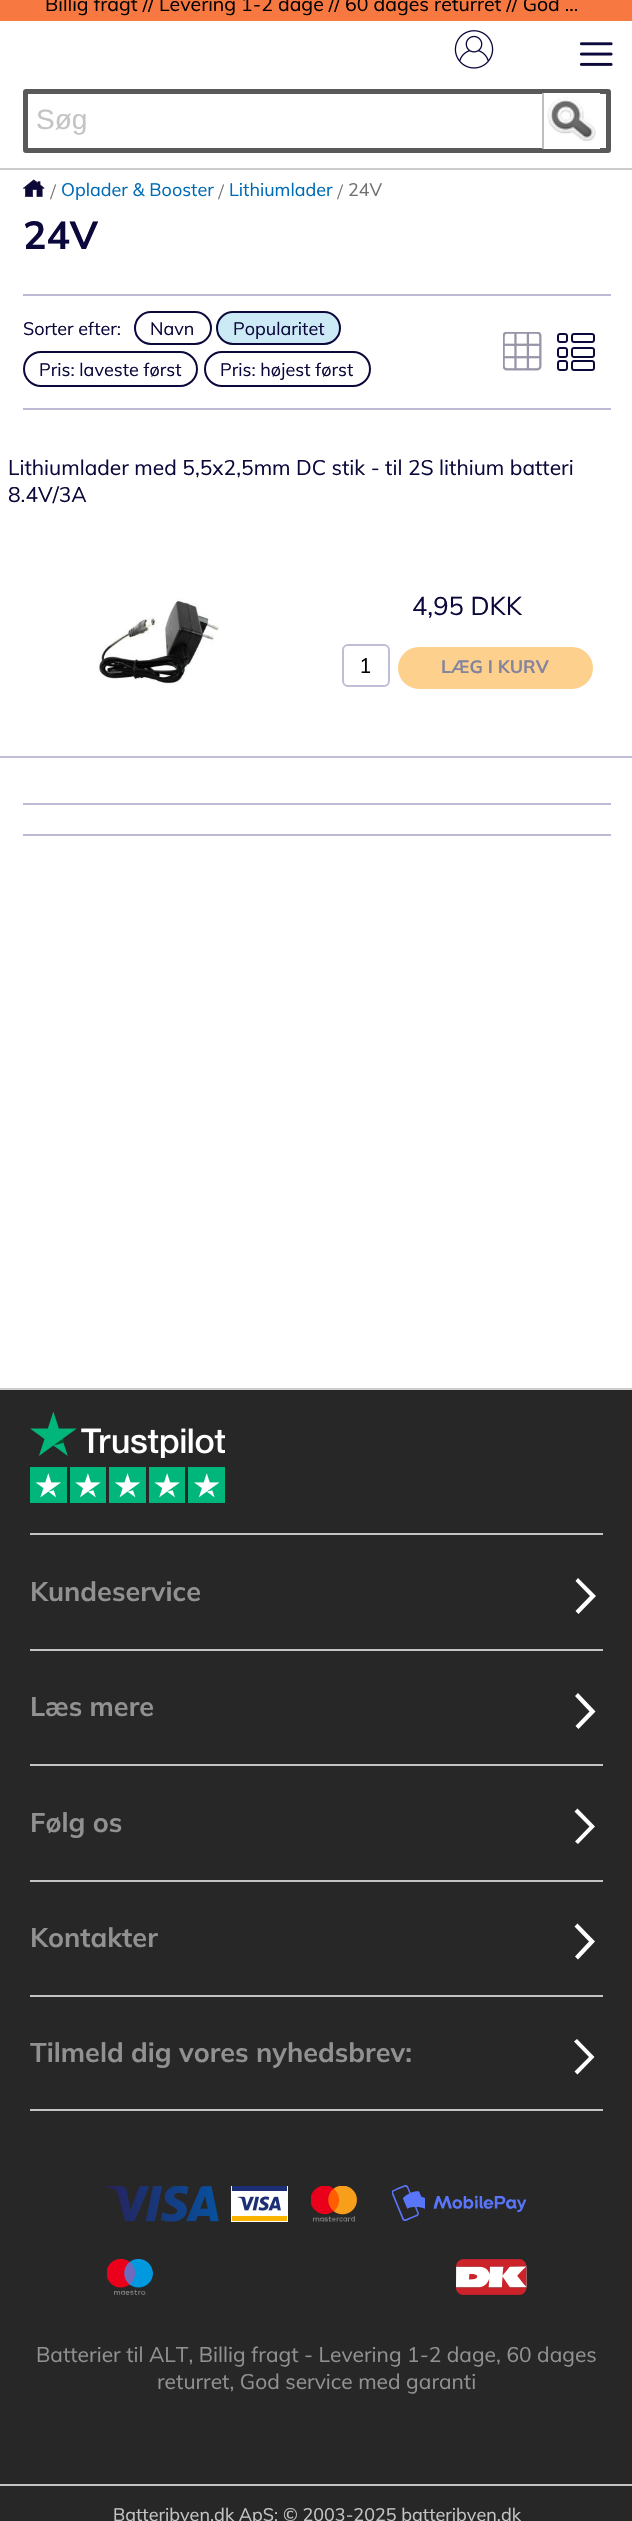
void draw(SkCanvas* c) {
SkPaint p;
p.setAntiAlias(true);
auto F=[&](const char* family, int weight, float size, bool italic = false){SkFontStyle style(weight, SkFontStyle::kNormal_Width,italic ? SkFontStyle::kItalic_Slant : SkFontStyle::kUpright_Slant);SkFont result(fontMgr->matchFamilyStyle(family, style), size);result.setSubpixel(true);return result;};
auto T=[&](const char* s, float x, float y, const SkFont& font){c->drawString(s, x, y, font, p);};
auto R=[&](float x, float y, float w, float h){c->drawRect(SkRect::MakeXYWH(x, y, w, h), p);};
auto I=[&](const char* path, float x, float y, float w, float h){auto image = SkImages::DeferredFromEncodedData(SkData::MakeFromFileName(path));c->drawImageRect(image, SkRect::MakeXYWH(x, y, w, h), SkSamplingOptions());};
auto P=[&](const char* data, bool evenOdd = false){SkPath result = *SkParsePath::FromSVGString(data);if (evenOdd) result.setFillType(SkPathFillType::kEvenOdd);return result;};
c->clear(0xffffffff);
p.setColor(0xfff77841);
R(0,0,632,21);
auto f1 = F("Mulish",400,19.5);
p.setColor(0xff000000);
T("Billig fragt // Levering 1-2 dage // 60 dages returret // God …",45,11,f1);
p.setColor(0xffcccccc);
R(0,168,632,2);
I("1.png",454,30,40,39);
I("2.png",579,42,34,24);
p.setStroke(true);
p.setStrokeWidth(5);
p.setColor(0xff595959);
c->drawRoundRect(SkRect::MakeXYWH(25.5,91.5,583,59),.5,.5,p);
auto f2 = F("Liberation Sans",400,28);
p.setStroke(false);
p.setColor(0xffc4c4c4);
T("Søg",36,129,f2);
p.setColor(0xffffffff);
R(544,93,56,56);
I("3.png",547,97,49,45);
p.setColor(0xffbfbfbf);
R(542,93,2,56);
I("4.png",23,179,22,18);
auto f3 = F("Liberation Serif",400,22);
p.setColor(0xff707070);
T("/",50,199,f3);
auto f4 = F("Mulish",400,18);
p.setColor(0xff006bb4);
T("Oplader & Booster",61,196,f4);
p.setColor(0xff707070);
T("/",218,199,f3);
p.setColor(0xff006bb4);
T("Lithiumlader",229,196,f4);
p.setColor(0xff707070);
T("/",337,199,f3);
T("24V",348,196,f4);
auto f5 = F("Mulish",700,39);
p.setColor(0xff0b083b);
T("24V",23,249,f5);
p.setColor(0xffbcbad4);
R(23,294,588,2);
R(23,408,588,2);
p.setColor(0xff0b083b);
T("Sorter efter:",23,335,f4);
p.setStroke(true);
p.setStrokeWidth(2);
c->drawRoundRect(SkRect::MakeXYWH(135,312,76,32),16,16,p);
p.setStroke(false);
T("Navn",150,335,f4);
p.setColor(0xffcce9f6);
c->drawRoundRect(SkRect::MakeXYWH(217,312,123,32),16,16,p);
p.setStroke(true);
p.setColor(0xff0b083b);
c->drawRoundRect(SkRect::MakeXYWH(217,312,123,32),16,16,p);
p.setStroke(false);
T("Popularitet",233,335,f4);
p.setStroke(true);
c->drawRoundRect(SkRect::MakeXYWH(24,352,173,34),17,17,p);
p.setStroke(false);
T("Pris: laveste først",39,376,f4);
p.setStroke(true);
c->drawRoundRect(SkRect::MakeXYWH(205,352,165,34),17,17,p);
p.setStroke(false);
T("Pris: højest først",220,376,f4);
I("5.png",503,332,39,39);
I("6.png",557,333,38,38);
p.setColor(0xffc0bed7);
R(0,756,632,2);
auto f6 = F("Mulish",400,21);
p.setColor(0xff0b083b);
T("Lithiumlader med 5,5x2,5mm DC stik - til 2S lithium batteri",8,475,f6);
T("8.4V/3A",8,502,f6);
I("7.png",96,598,123,88);
auto f7 = F("Mulish",400,25.5);
T("4,95 DKK",412,615,f7);
p.setStroke(true);
p.setColor(0xffc0bed7);
c->drawRoundRect(SkRect::MakeXYWH(343,645,46,41),5,5,p);
p.setStroke(false);
p.setColor(0xff000000);
T("1",359,673,f6);
p.setColor(0xfffdd18d);
c->drawRoundRect(SkRect::MakeXYWH(399,648,193,40),20,20,p);
p.setStroke(true);
c->drawRoundRect(SkRect::MakeXYWH(399,648,193,40),20,20,p);
auto f8 = F("Mulish",700,18);
p.setStroke(false);
p.setColor(0xff85849d);
T("LÆG I KURV",441,673,f8);
p.setColor(0xffbcbad4);
R(23,803,588,2);
R(23,834,588,2);
p.setColor(0xff272727);
R(0,1390,632,1094);
p.setColor(0xffcecece);
R(0,1388,632,2);
I("8.png",30,1412,195,46);
I("9.png",30,1467,195,36);
p.setColor(0xffc4c4c4);
R(30,1533,573,2);
R(30,1649,573,2);
auto f9 = F("Mulish",700,27);
p.setColor(0xff919191);
T("Kundeservice",30,1601,f9);
p.setColor(0xffffffff);
c->drawPath(P("M590 1596l-14.5 15l3 3l17.5-18l-18-18l-2.5 3z"),p);
p.setColor(0xffc4c4c4);
R(30,1764,573,2);
p.setColor(0xff919191);
T("Læs mere",30,1716,f9);
p.setColor(0xffffffff);
c->drawPath(P("M589.5 1711.5l-14 14.5l3 3l17-17.5l-17.5-18.5l-3 3z"),p);
p.setColor(0xffc4c4c4);
R(30,1880,573,2);
p.setColor(0xff919191);
T("Følg os",30,1832,f9);
p.setColor(0xffffffff);
c->drawPath(P("M589.5 1826.5l-14.5 15l3 2.5l17-17.5l-17.5-18l-3 3z"),p);
p.setColor(0xffc4c4c4);
R(30,1995,573,2);
p.setColor(0xff919191);
T("Kontakter",30,1947,f9);
p.setColor(0xffffffff);
c->drawPath(P("M589 1941.5l-14 15l3 3l17-18l-17.5-18l-3 3z"),p);
p.setColor(0xffc4c4c4);
R(30,2109,573,2);
p.setColor(0xff919191);
T("Tilmeld dig vores nyhedsbrev:",30,2062,f9);
p.setColor(0xffffffff);
c->drawPath(P("M589 2057l-14.5 14.5l3 3l17-17.5l-17.5-18l-3 2.5z"),p);
I("10.png",107,2186,112,36);
I("11.png",231,2186,57,36);
I("12.png",311,2186,46,36);
I("13.png",392,2185,135,36);
I("14.png",107,2259,46,36);
I("15.png",456,2259,71,36);
p.setColor(0xff919191);
T("Batterier til ALT, Billig fragt - Levering 1-2 dage, 60 dages",36,2362,f6);
T("returret, God service med garanti",157,2389,f6);
p.setColor(0xff272727);
R(0,2486,632,35);
p.setColor(0xffc4c4c4);
R(0,2484,632,2);
T("Batteribyen.dk ApS: © 2003-2025 batteribyen.dk",113,2521,f4);
}
